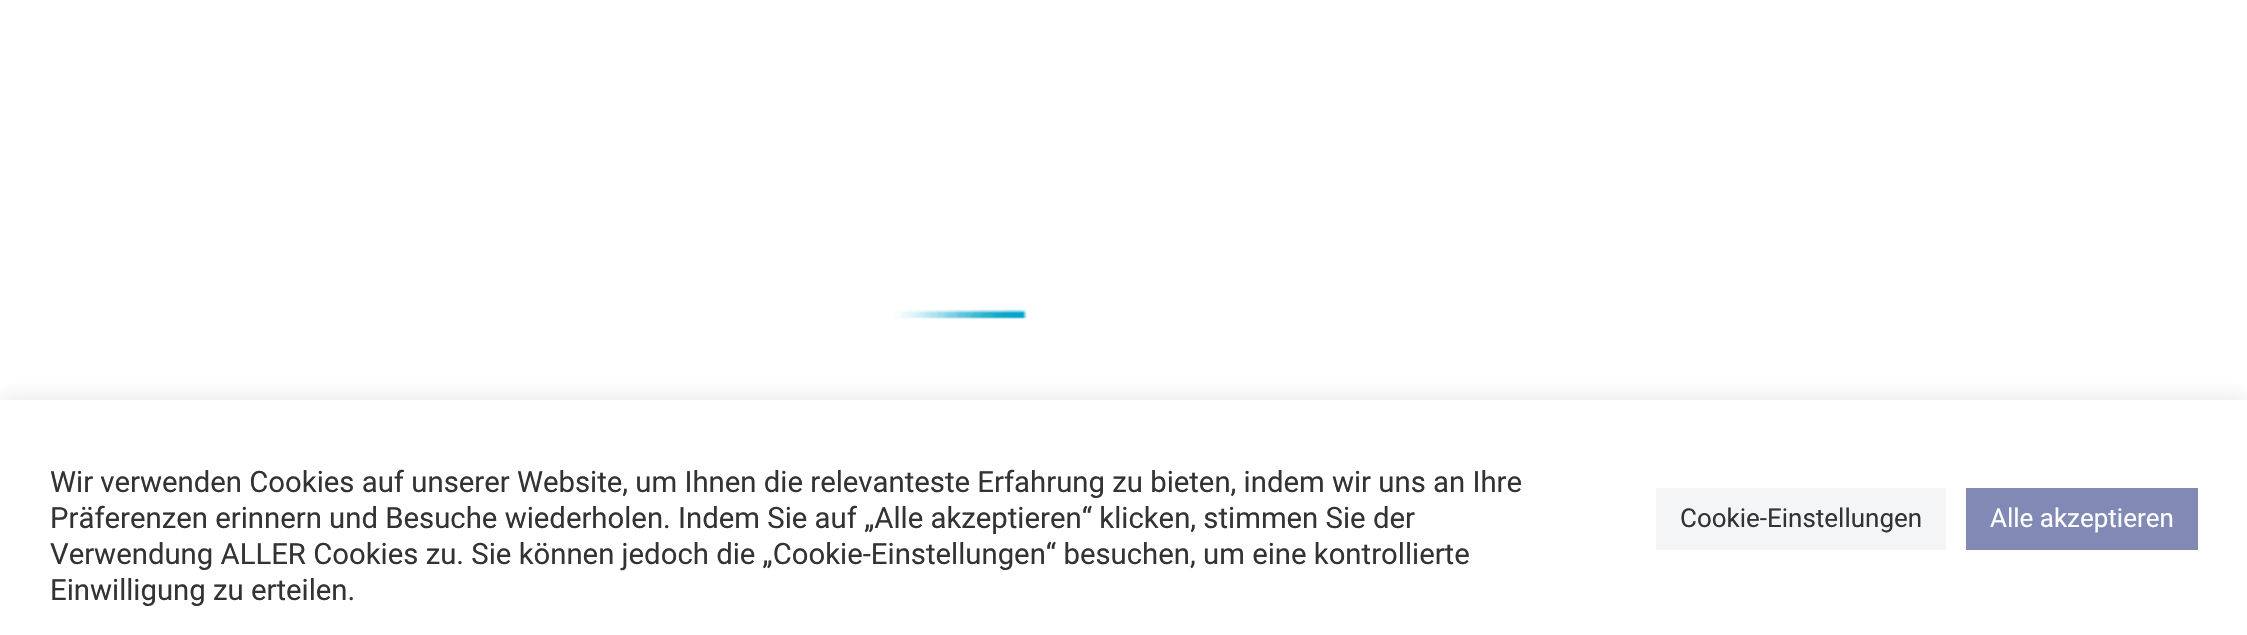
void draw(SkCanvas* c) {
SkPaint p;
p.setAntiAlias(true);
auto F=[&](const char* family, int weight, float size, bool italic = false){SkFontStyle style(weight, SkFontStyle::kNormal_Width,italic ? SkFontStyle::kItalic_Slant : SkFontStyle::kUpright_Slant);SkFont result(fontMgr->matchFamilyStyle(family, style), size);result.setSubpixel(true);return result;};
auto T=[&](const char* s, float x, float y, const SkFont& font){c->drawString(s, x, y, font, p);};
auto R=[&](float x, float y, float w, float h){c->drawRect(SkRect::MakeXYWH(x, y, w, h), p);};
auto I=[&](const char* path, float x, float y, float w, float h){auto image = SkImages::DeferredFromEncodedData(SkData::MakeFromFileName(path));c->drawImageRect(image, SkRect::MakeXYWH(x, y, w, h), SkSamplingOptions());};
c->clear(0xffffffff);
I("1.png",895,309,132,10);
c->save();
c->clipRect(SkRect::MakeXYWH(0,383,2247,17));
p.setColor(0x4dacabab);
p.setMaskFilter(SkMaskFilter::MakeBlur(kNormal_SkBlurStyle, 10));
c->drawRect(SkRect::MakeXYWH(0,398,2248,236),p);
p.setMaskFilter(nullptr);
c->restore();
auto f1 = F("Roboto",400,29.33);
p.setColor(0xff333333);
T("Wir verwenden Cookies auf unserer Website, um Ihnen die relevanteste Erfahrung zu bieten, indem wir uns an Ihre",50,492,f1);
T("Präferenzen erinnern und Besuche wiederholen. Indem Sie auf „Alle akzeptieren“ klicken, stimmen Sie der",50,528,f1);
T("Verwendung ALLER Cookies zu. Sie können jedoch die „Cookie-Einstellungen“ besuchen, um eine kontrollierte",50,564,f1);
T("Einwilligung zu erteilen.",50,600,f1);
p.setColor(0xfff4f5f7);
R(1656,488,290,62);
auto f2 = F("Roboto",400,26);
p.setColor(0xff333333);
T("Cookie-Einstellungen",1680,527,f2);
p.setColor(0xff8189b5);
R(1966,488,232,62);
p.setColor(0xffffffff);
T("Alle akzeptieren",1990,527,f2);
}
